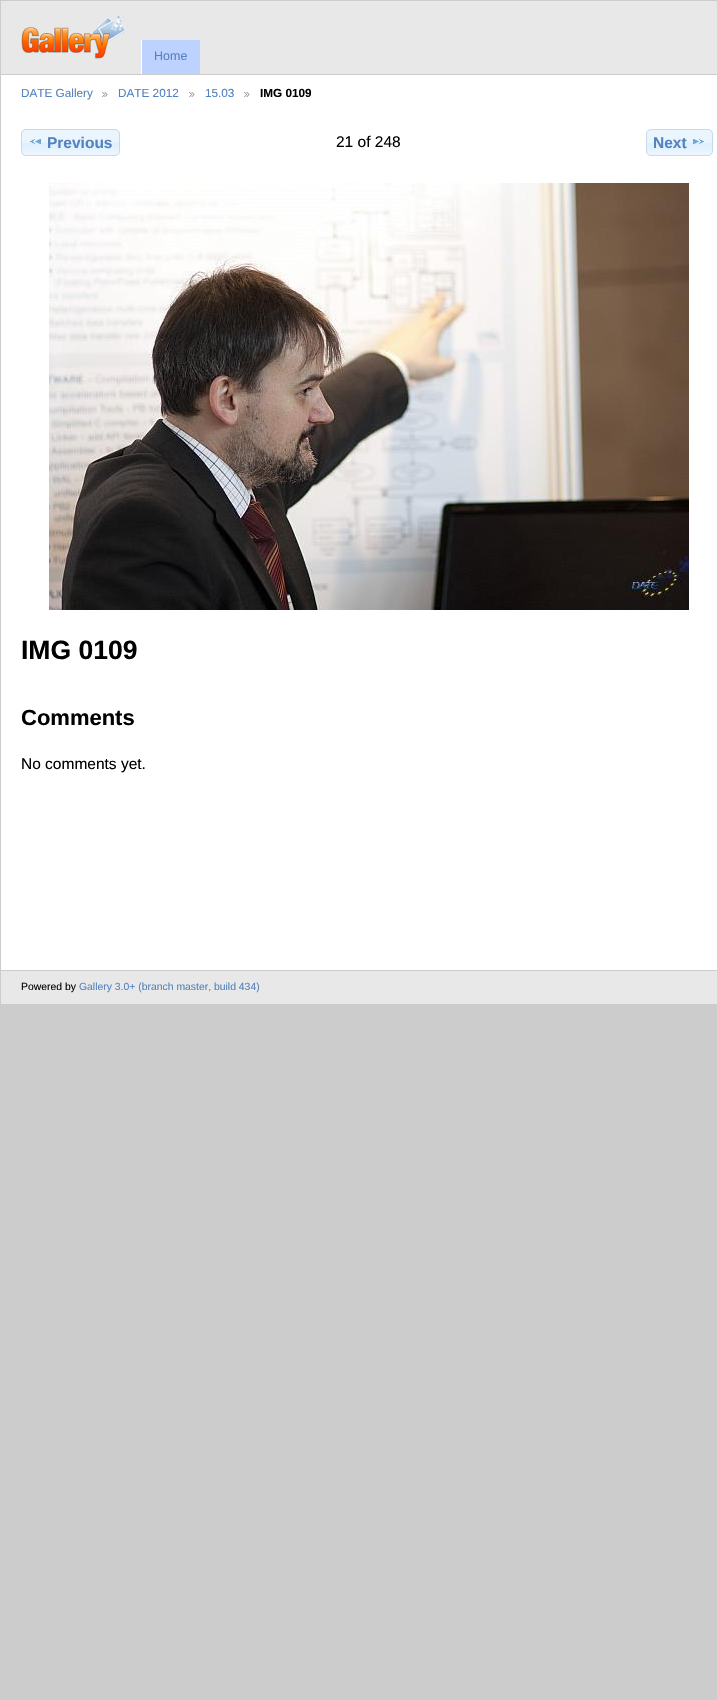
void draw(SkCanvas* c) {
SkPaint p;
p.setAntiAlias(true);
auto F=[&](const char* family, int weight, float size, bool italic = false){SkFontStyle style(weight, SkFontStyle::kNormal_Width,italic ? SkFontStyle::kItalic_Slant : SkFontStyle::kUpright_Slant);SkFont result(fontMgr->matchFamilyStyle(family, style), size);result.setSubpixel(true);return result;};
auto T=[&](const char* s, float x, float y, const SkFont& font){c->drawString(s, x, y, font, p);};
auto R=[&](float x, float y, float w, float h){c->drawRect(SkRect::MakeXYWH(x, y, w, h), p);};
auto I=[&](const char* path, float x, float y, float w, float h){auto image = SkImages::DeferredFromEncodedData(SkData::MakeFromFileName(path));c->drawImageRect(image, SkRect::MakeXYWH(x, y, w, h), SkSamplingOptions());};
auto P=[&](const char* data, bool evenOdd = false){SkPath result = *SkParsePath::FromSVGString(data);if (evenOdd) result.setFillType(SkPathFillType::kEvenOdd);return result;};
c->clear(0xffcccccc);
p.setColor(0xffffffff);
R(1,75,716,895);
p.setColor(0xffe8e8e8);
R(1,1,716,73);
I("1.png",21,15,106,44);
p.setColor(0xffbdd2ff);
R(141,39,59,35);
p.setColor(0xffdee9ff);
c->drawPath(P("M141 39h59v1h-58z"),p);
p.setColor(0xffffffff);
c->drawPath(P("M141 74v-35l1 1v34z"),p);
auto f1 = F("Liberation Sans",400,12.5);
p.setColor(0xff5382bf);
T("Home",154,60,f1);
auto f2 = F("Liberation Sans",400,11.75);
T("DATE Gallery",21,97,f2);
I("2.png",102,92,6,5);
T("DATE 2012",118,97,f2);
I("2.png",189,92,6,5);
T("15.03",205,97,f2);
I("2.png",244,92,6,5);
auto f3 = F("Liberation Sans",700,11.75);
p.setColor(0xff000000);
T("IMG 0109",260,97,f3);
I("3.png",21,129,99,27);
p.setStroke(true);
p.setStrokeWidth(1);
p.setColor(0xffc5dbec);
c->drawRoundRect(SkRect::MakeXYWH(21.5,129.5,98,26),4.5,4.5,p);
I("4.png",30,139,11,5);
auto f4 = F("Liberation Sans",700,15.5);
p.setStroke(false);
p.setColor(0xff5382bf);
T("Previous",47,148,f4);
auto f5 = F("Liberation Sans",400,15.5);
p.setColor(0xff000000);
T("21 of 248",336,147,f5);
I("5.png",646,129,67,27);
p.setStroke(true);
p.setColor(0xffc5dbec);
c->drawRoundRect(SkRect::MakeXYWH(646.5,129.5,66,26),4.5,4.5,p);
p.setStroke(false);
p.setColor(0xff5382bf);
T("Next",653,148,f4);
I("6.png",693,139,11,5);
I("7.png",49,183,640,427);
auto f6 = F("Liberation Sans",700,26.5);
p.setColor(0xff000000);
T("IMG 0109",21,659,f6);
auto f7 = F("Liberation Sans",700,22);
T("Comments",21,725,f7);
T("No comments yet.",21,769,f5);
p.setColor(0xffe8e8e8);
R(1,971,716,33);
auto f8 = F("Liberation Sans",400,10.4);
p.setColor(0xff000000);
T("Powered by",21,990,f8);
p.setColor(0xff5382bf);
T("Gallery 3.0+ (branch master, build 434)",79,990,f8);
}
